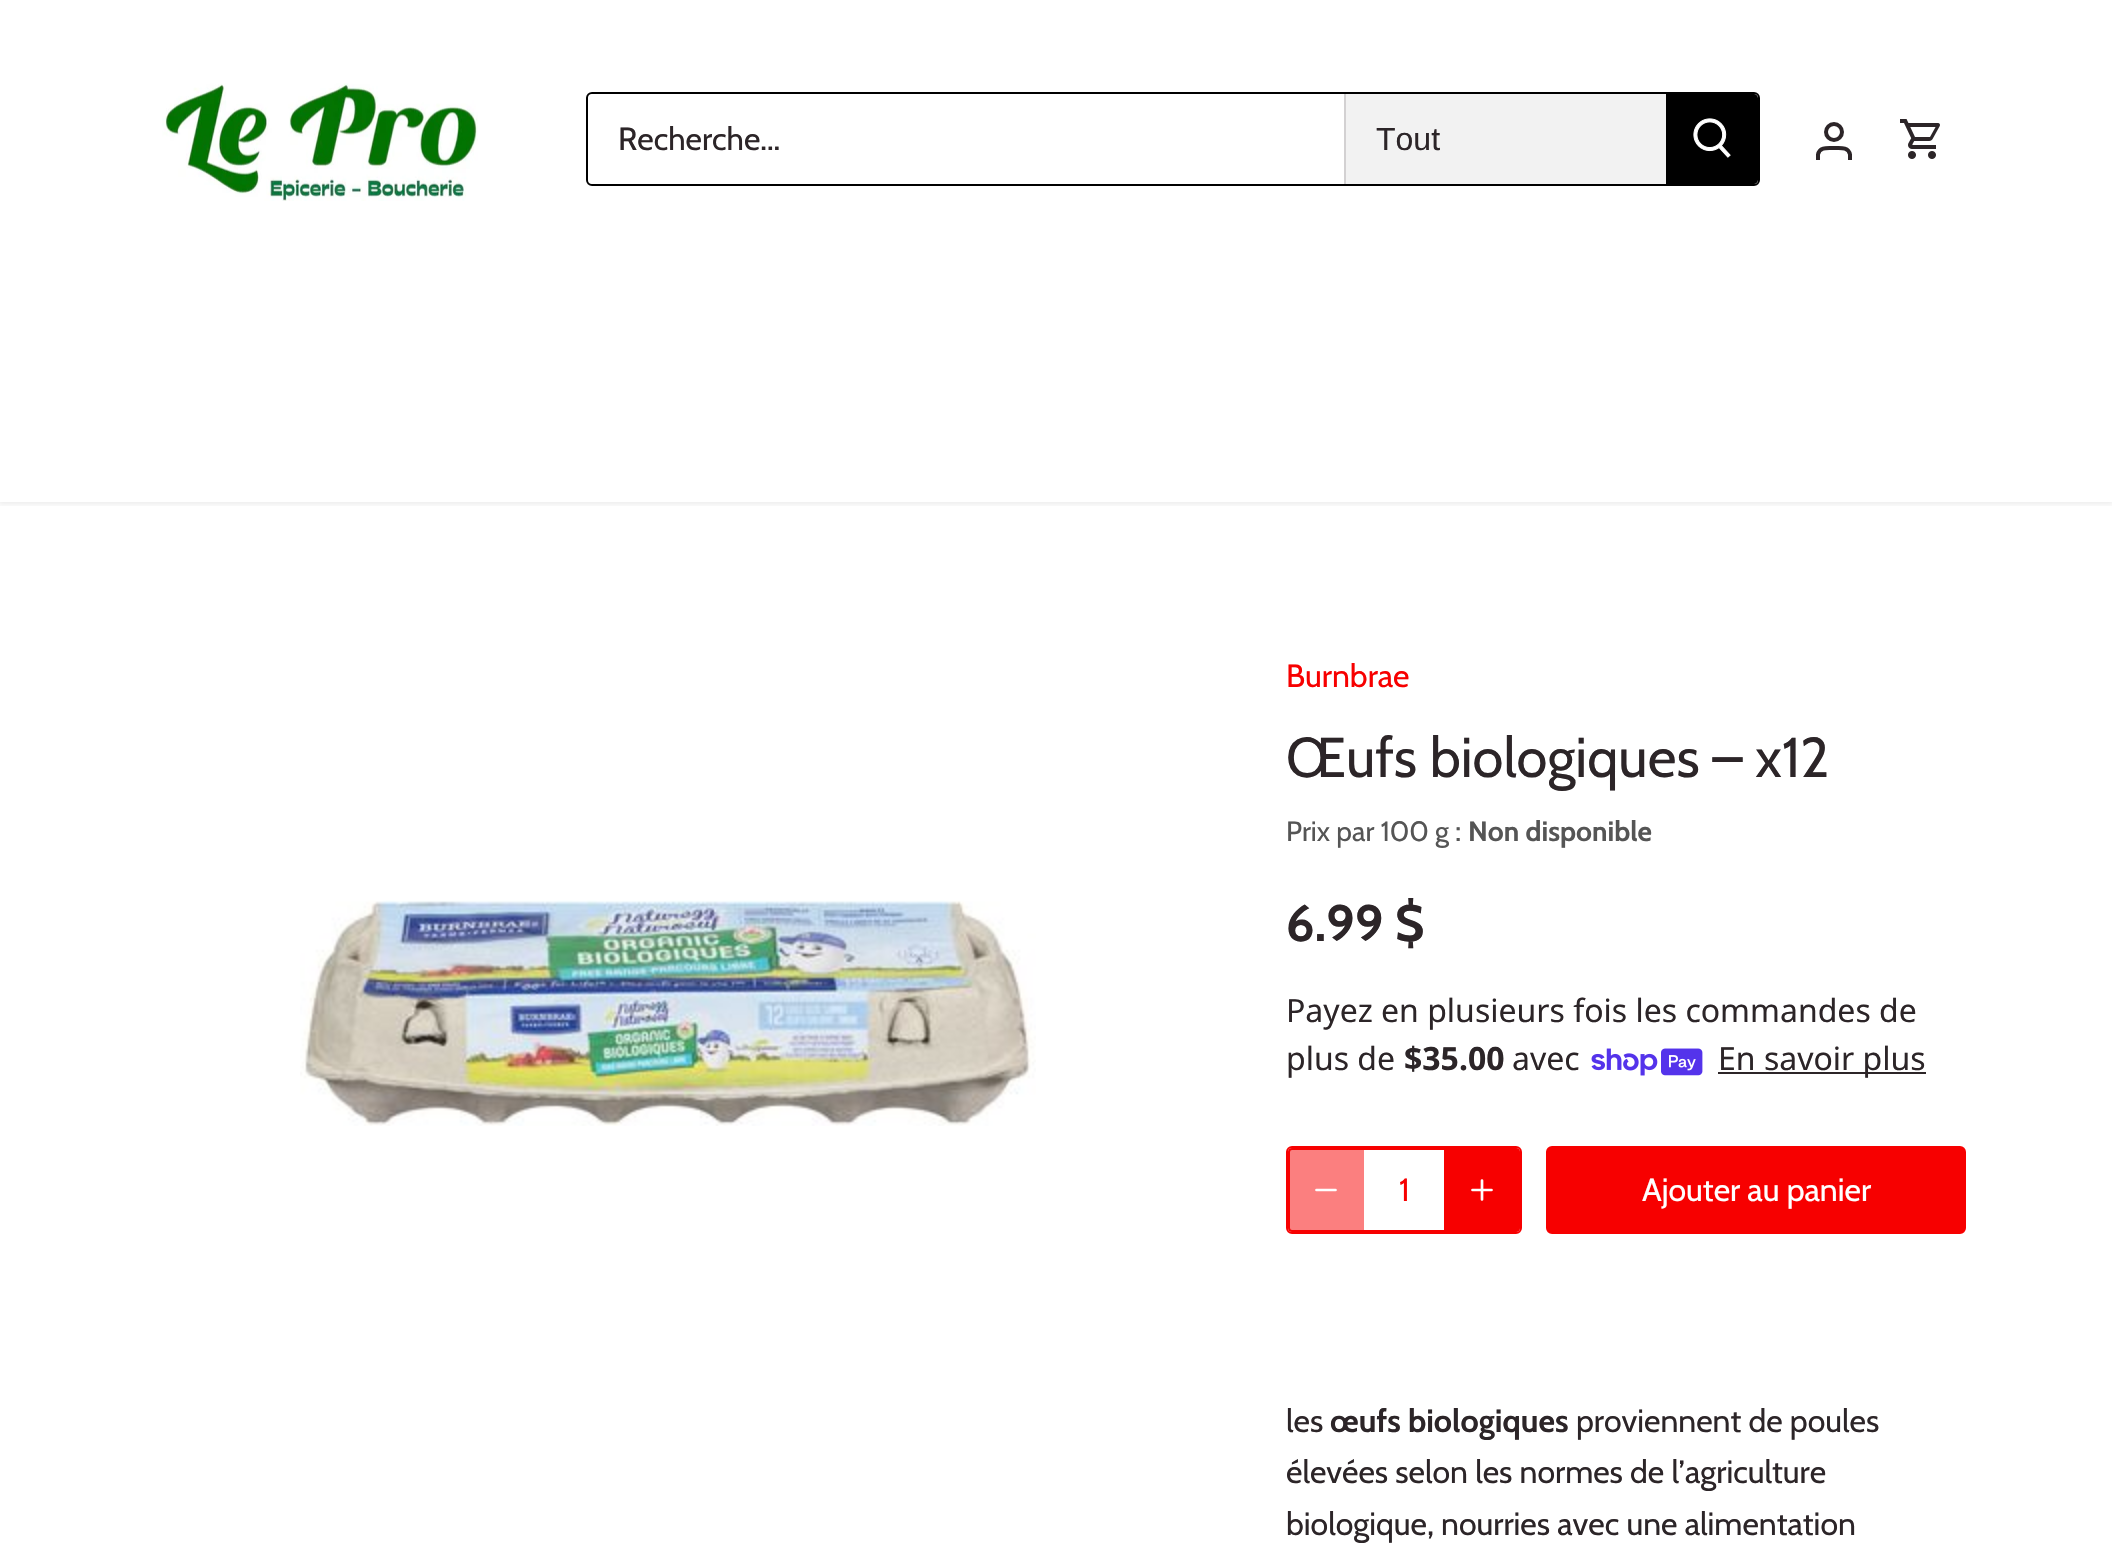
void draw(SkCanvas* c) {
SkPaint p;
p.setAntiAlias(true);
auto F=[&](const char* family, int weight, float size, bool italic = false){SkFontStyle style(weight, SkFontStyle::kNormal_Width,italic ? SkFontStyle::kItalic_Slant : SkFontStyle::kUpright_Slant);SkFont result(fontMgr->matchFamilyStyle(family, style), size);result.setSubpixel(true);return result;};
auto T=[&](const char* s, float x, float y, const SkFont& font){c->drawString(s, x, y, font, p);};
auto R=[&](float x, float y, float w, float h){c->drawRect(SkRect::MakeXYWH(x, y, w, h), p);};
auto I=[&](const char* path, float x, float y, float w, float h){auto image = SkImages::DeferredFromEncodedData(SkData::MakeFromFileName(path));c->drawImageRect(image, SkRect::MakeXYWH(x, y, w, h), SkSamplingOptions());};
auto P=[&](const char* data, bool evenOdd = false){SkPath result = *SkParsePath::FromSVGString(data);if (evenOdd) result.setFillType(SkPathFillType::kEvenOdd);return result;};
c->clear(0xffffffff);
c->save();
c->clipRect(SkRect::MakeXYWH(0,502,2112,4));
p.setColor(0x14000000);
p.setMaskFilter(SkMaskFilter::MakeBlur(kNormal_SkBlurStyle, 3));
c->drawRect(SkRect::MakeXYWH(-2,-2,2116,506),p);
p.setMaskFilter(nullptr);
c->restore();
I("1.png",162,83,316,118);
p.setStroke(true);
p.setStrokeWidth(2);
p.setColor(0xff000000);
c->drawRoundRect(SkRect::MakeXYWH(587,93,1172,92),5,5,p);
p.setStroke(false);
p.setColor(0xffffffff);
c->drawPath(P("M594 94h750v90h-750c-3.5 0-6-2.5-6-6v-78c0-3.5 2.5-6 6-6z"),p);
auto f1 = F("Cabin",400,32);
p.setColor(0xff2c2528);
T("Recherche...",618,150,f1);
p.setColor(0xfff2f2f2);
R(1346,94,320,90);
p.setColor(0xffd3d1d2);
R(1344,94,2,90);
auto f2 = F("Liberation Sans",400,32);
p.setColor(0xff2c2528);
T("Tout",1376,150,f2);
p.setColor(0xff000000);
c->drawPath(P("M1666 94h88c2 0 4 2 4 4v82c0 2-2 4-4 4h-88z"),p);
I("2.png",1693,118,38,40);
p.setStroke(true);
p.setStrokeWidth(4);
p.setColor(0xff2c2528);
c->drawCircle(1834,132,8,p);
c->drawPath(P("M1850 160v-5.5c-1.5-8-10-6.5-16-6.5c-6 0-14.5-1.5-16 6.5v5.5"),p);
I("3.png",1900,119,40,40);
I("4.png",300,900,736,226);
p.setStroke(false);
p.setColor(0xfff70000);
T("Burnbrae",1286,687,f1);
auto f3 = F("Cabin",400,56);
p.setColor(0xff2c2528);
T("Œufs biologiques – x12",1286,777,f3);
auto f4 = F("Cabin",400,28);
p.setColor(0xff555555);
T("Prix par 100 g :",1286,841,f4);
auto f5 = F("Cabin",700,28);
T("Non disponible",1468,841,f5);
auto f6 = F("Cabin",700,51);
p.setColor(0xff2c2528);
T("6.99 $",1286,941,f6);
auto f7 = F("Noto Sans",400,32);
T("Payez en plusieurs fois les commandes de",1286,1022,f7);
T("plus de",1286,1070,f7);
auto f8 = F("Noto Sans",700,32);
T("$35.00",1404,1070,f8);
T("avec",1512,1070,f7);
I("5.png",1591,1048,112,28);
R(1718,1072,208,2);
T("En savoir plus",1718,1070,f7);
p.setStroke(true);
p.setStrokeWidth(2);
p.setColor(0xfff70000);
c->drawRoundRect(SkRect::MakeXYWH(1289,1149,230,82),3,3,p);
c->drawRoundRect(SkRect::MakeXYWH(1287,1147,234,86),5,5,p);
p.setStroke(false);
p.setColor(0x80f70000);
c->drawPath(P("M1294 1148h70v84h-70c-3.5 0-6-2.5-6-6v-72c0-3.5 2.5-6 6-6z"),p);
p.setStroke(true);
p.setStrokeWidth(2.7);
p.setStrokeCap(SkPaint::kRound_Cap);
p.setStrokeJoin(SkPaint::kRound_Join);
p.setColor(0xffffffff);
c->drawPath(P("M1316.5 1190h19"),p);
p.setStroke(false);
p.setColor(0xfff70000);
T("1",1399,1201,f1);
c->drawPath(P("M1444 1148h70c3.5 0 6 2.5 6 6v72c0 3.5-2.5 6-6 6h-70z"),p);
p.setStroke(true);
p.setColor(0xffffffff);
c->drawPath(P("M1482 1180.5v19m-9.5-9.5h19"),p);
p.setStroke(false);
p.setColor(0xfff70000);
c->drawRoundRect(SkRect::MakeXYWH(1548,1148,416,84),4,4,p);
p.setStroke(true);
p.setStrokeWidth(4);
p.setStrokeCap(SkPaint::kButt_Cap);
p.setStrokeJoin(SkPaint::kMiter_Join);
c->drawRoundRect(SkRect::MakeXYWH(1548,1148,416,84),4,4,p);
p.setStroke(false);
p.setColor(0xffffffff);
T("Ajouter au panier",1642,1201,f1);
p.setColor(0xff2c2528);
T("les",1286,1432,f1);
auto f9 = F("Cabin",700,32);
T("œufs biologiques",1330,1432,f9);
T("proviennent de poules",1576,1432,f1);
T("élevées selon les normes de l’agriculture",1286,1483,f1);
T("biologique, nourries avec une alimentation",1286,1535,f1);
}
